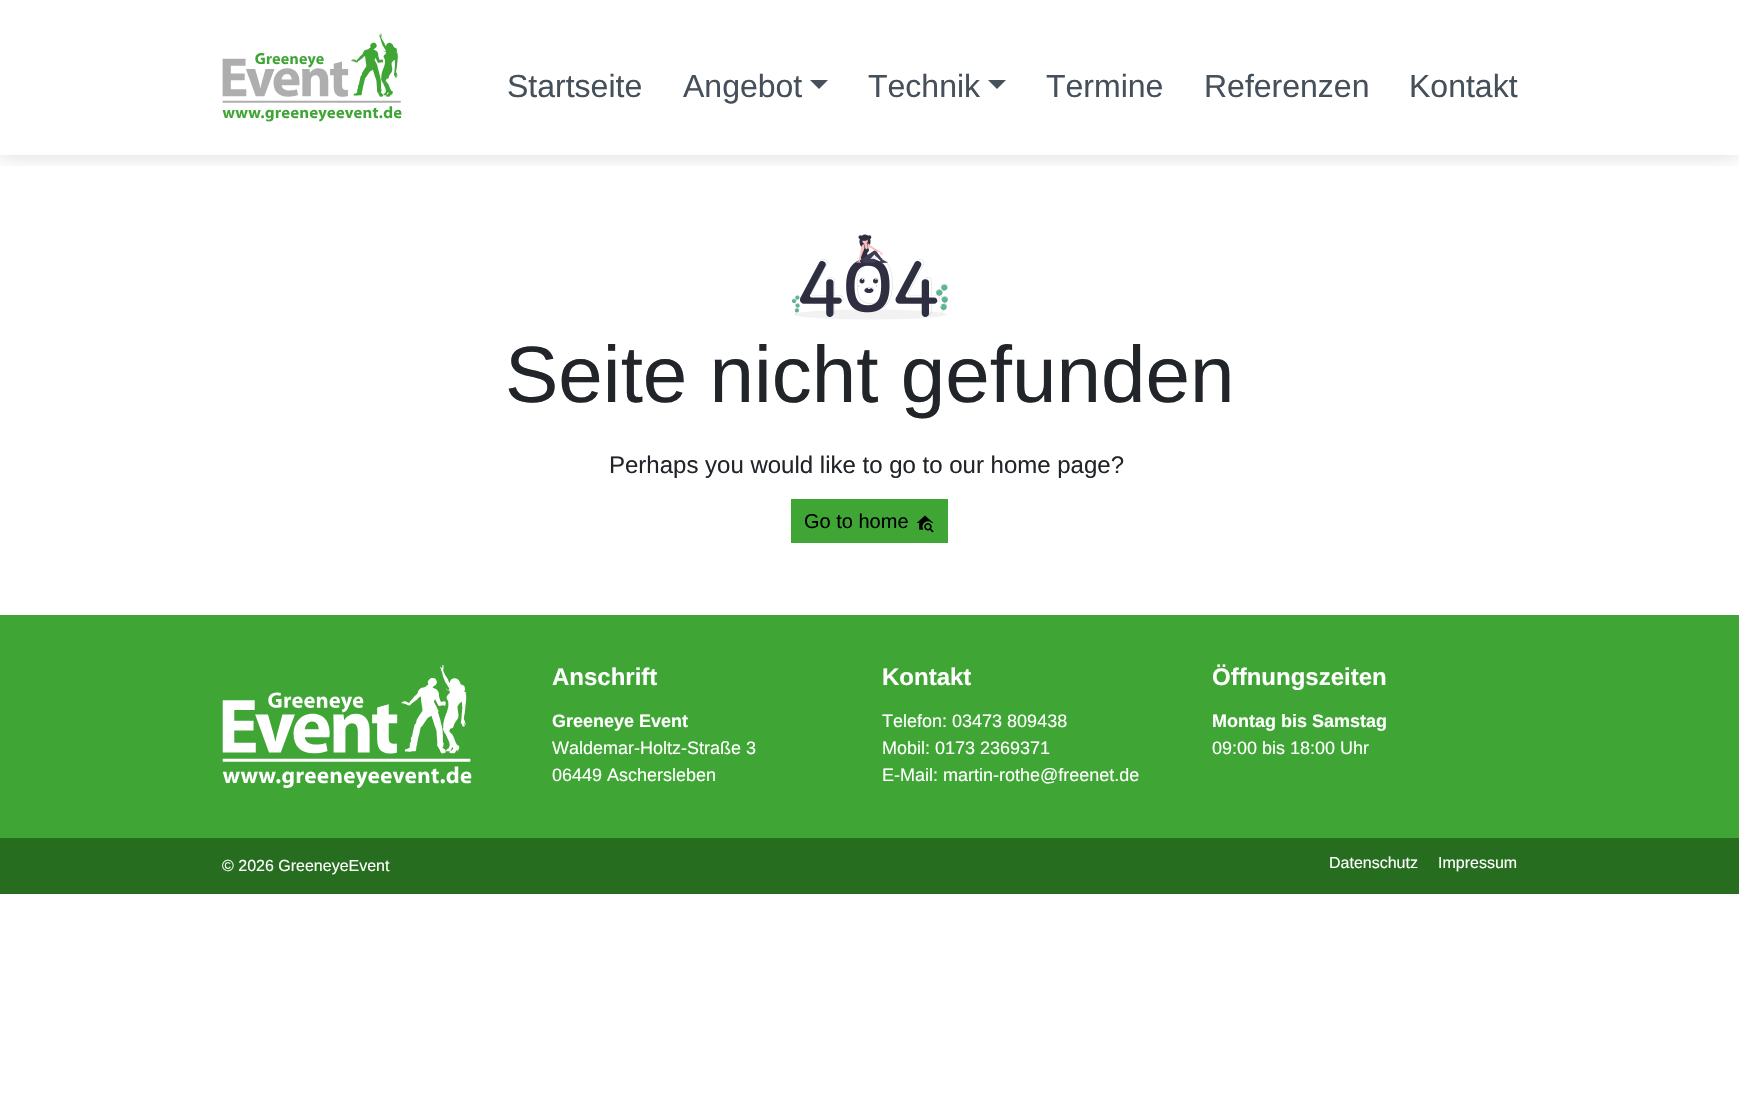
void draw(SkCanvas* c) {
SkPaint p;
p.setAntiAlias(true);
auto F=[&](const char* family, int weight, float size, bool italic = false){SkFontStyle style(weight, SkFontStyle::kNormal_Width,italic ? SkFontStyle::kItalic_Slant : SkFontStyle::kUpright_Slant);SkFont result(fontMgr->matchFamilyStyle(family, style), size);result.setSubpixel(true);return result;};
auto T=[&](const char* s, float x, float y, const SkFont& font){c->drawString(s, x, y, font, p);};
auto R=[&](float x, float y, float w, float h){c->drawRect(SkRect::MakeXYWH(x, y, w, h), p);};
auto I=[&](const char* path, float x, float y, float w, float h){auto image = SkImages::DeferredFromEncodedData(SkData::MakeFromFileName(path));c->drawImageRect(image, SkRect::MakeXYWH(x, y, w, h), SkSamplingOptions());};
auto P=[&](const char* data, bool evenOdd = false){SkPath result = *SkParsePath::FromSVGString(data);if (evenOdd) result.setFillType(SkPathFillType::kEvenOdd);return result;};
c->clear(0xffffffff);
c->save();
c->clipRect(SkRect::MakeXYWH(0,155,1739,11));
p.setColor(0x26000000);
p.setMaskFilter(SkMaskFilter::MakeBlur(kNormal_SkBlurStyle, 10));
c->drawRect(SkRect::MakeXYWH(0,0,1739,155),p);
p.setMaskFilter(nullptr);
c->restore();
I("1.png",222,33,180,89);
auto f1 = F("Liberation Sans",400,32);
p.setColor(0xff46505a);
T("Startseite",507,97,f1);
T("Angebot",683,97,f1);
c->drawPath(P("M810 80h18l-9 9z"),p);
T("Technik",868,97,f1);
c->drawPath(P("M988 80h18l-9 9z"),p);
T("Termine",1046,97,f1);
T("Referenzen",1204,97,f1);
T("Kontakt",1409,97,f1);
I("2.png",792,234,156,86);
auto f2 = F("Liberation Sans",400,80);
p.setColor(0xff212529);
T("Seite nicht gefunden",505,402,f2);
auto f3 = F("Liberation Sans",400,24);
T("Perhaps you would like to go to our home page?",609,473,f3);
p.setColor(0xff3fa535);
R(791,499,157,44);
auto f4 = F("Liberation Sans",400,20);
p.setColor(0xff000000);
T("Go to home",804,528,f4);
I("3.png",916,515,18,18);
p.setColor(0xff3fa535);
R(0,615,1739,223);
I("4.png",222,664,250,125);
auto f5 = F("Liberation Sans",700,24);
p.setColor(0xffffffff);
T("Anschrift",552,685,f5);
auto f6 = F("Liberation Sans",700,18);
T("Greeneye Event",552,727,f6);
auto f7 = F("Liberation Sans",400,18);
T("Waldemar-Holtz-Straße 3",552,754,f7);
T("06449 Aschersleben",552,781,f7);
T("Kontakt",882,685,f5);
T("Telefon: 03473 809438",882,727,f7);
T("Mobil: 0173 2369371",882,754,f7);
T("E-Mail: martin-rothe@freenet.de",882,781,f7);
T("Öffnungszeiten",1212,685,f5);
T("Montag bis Samstag",1212,727,f6);
T("09:00 bis 18:00 Uhr",1212,754,f7);
p.setColor(0xff266d20);
R(0,838,1739,56);
auto f8 = F("Liberation Sans",400,16);
p.setColor(0xffffffff);
T("© 2026 GreeneyeEvent",222,871,f8);
T("Datenschutz",1329,868,f8);
T("Impressum",1438,868,f8);
}
